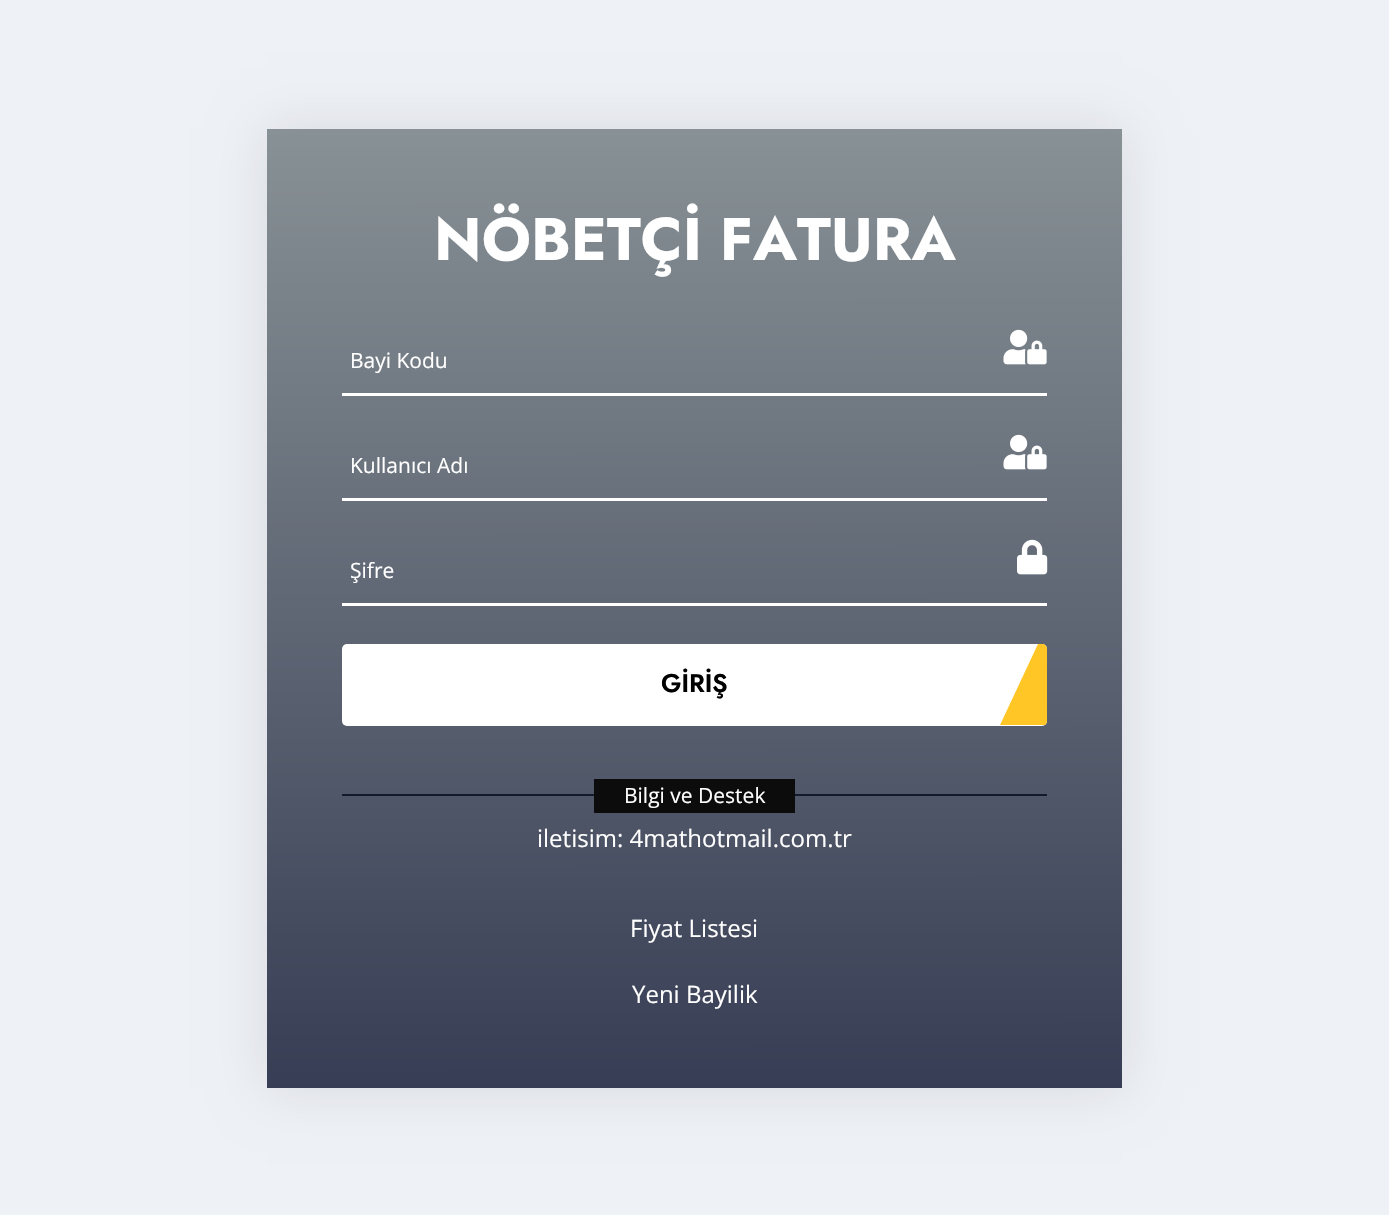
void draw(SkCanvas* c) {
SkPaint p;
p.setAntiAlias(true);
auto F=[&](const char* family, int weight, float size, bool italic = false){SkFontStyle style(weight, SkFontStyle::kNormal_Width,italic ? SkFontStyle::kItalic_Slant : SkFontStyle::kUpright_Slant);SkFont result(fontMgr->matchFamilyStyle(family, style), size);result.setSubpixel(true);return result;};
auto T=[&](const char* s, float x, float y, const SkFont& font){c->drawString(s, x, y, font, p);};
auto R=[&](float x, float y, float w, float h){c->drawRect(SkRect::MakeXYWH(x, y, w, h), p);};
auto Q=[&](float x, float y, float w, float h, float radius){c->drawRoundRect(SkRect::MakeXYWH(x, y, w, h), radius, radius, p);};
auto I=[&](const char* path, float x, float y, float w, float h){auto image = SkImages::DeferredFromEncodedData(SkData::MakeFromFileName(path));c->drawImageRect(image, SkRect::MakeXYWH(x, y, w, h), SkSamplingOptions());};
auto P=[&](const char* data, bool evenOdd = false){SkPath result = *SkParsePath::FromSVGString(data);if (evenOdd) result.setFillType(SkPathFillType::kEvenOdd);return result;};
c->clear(0xffeef1f6);
p.setColor(0x1a000000);
p.setMaskFilter(SkMaskFilter::MakeBlur(kNormal_SkBlurStyle, 26));
c->drawRect(SkRect::MakeXYWH(267,129,855,959),p);
p.setMaskFilter(nullptr);
{
const SkColor colors[] = {0xff889195,0xff373d54};
const float stops[] = {0,1};
const SkPoint ends[] = {{694,129}, {695,1088}};
p.setShader(SkGradientShader::MakeLinear(ends, colors, stops, 2, SkTileMode::kClamp));
p.setAlpha(255);
}
R(267,129,855,959);
auto f1 = F("Jost",700,60);
p.setShader(nullptr);
p.setColor(0xffffffff);
T("NÖBETÇİ FATURA",434,260,f1);
R(342,393,705,3);
auto f2 = F("Open Sans",400,21);
T("Bayi Kodu",350,368,f2);
I("1.png",1003,329,44,36);
R(342,498,705,3);
T("Kullanıcı Adı",350,473,f2);
I("2.png",1003,434,44,36);
R(342,603,705,3);
T("Şifre",350,578,f2);
I("3.png",1017,539,31,36);
Q(342,644,705,82,5);
auto f3 = F("Jost",600,25.5);
p.setColor(0xff000000);
T("GİRİŞ",661,692,f3);
p.setColor(0xffffc626);
c->drawPath(P("M1045 725h-45l38-81h4c3 0 5 2 5 5v72c0 2-1 3-2 4z"),p);
p.setColor(0xff121b2b);
R(342,794,705,2);
p.setColor(0xff0c0c0c);
R(594,779,201,34);
p.setColor(0xffffffff);
T("Bilgi ve Destek",624,803,f2);
auto f4 = F("Open Sans",400,24);
T("iletisim: 4mathotmail.com.tr",537,847,f4);
T("Fiyat Listesi",630,937,f4);
T("Yeni Bayilik",632,1003,f4);
}
